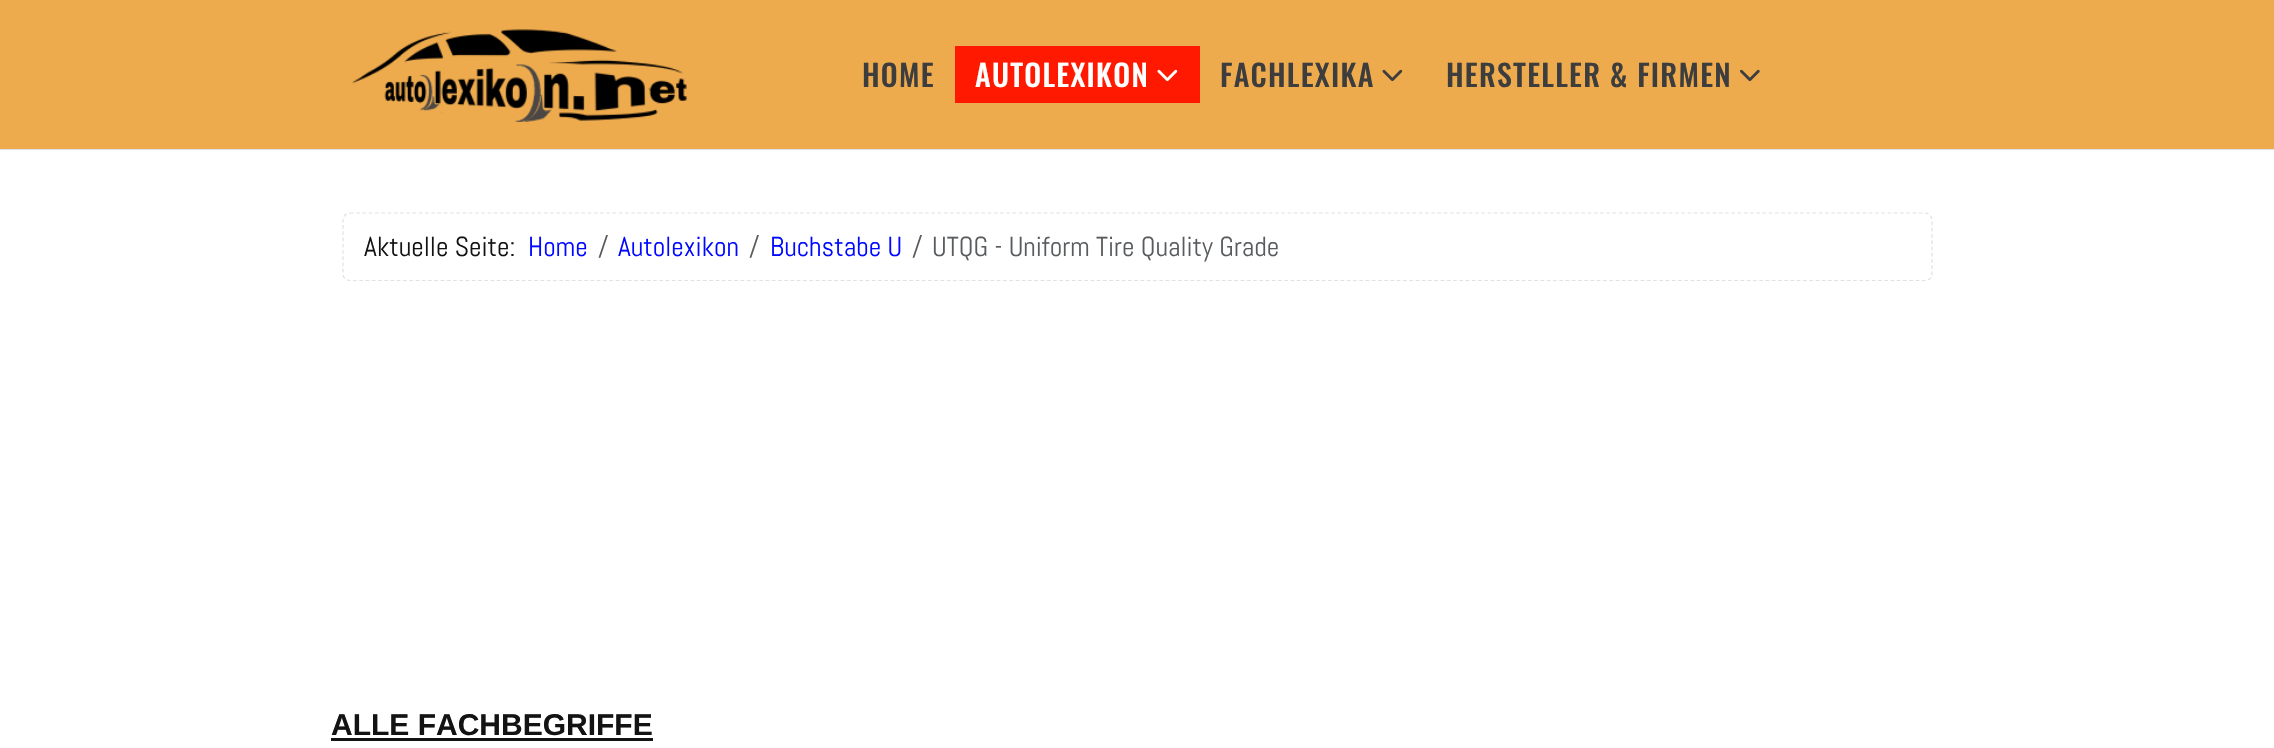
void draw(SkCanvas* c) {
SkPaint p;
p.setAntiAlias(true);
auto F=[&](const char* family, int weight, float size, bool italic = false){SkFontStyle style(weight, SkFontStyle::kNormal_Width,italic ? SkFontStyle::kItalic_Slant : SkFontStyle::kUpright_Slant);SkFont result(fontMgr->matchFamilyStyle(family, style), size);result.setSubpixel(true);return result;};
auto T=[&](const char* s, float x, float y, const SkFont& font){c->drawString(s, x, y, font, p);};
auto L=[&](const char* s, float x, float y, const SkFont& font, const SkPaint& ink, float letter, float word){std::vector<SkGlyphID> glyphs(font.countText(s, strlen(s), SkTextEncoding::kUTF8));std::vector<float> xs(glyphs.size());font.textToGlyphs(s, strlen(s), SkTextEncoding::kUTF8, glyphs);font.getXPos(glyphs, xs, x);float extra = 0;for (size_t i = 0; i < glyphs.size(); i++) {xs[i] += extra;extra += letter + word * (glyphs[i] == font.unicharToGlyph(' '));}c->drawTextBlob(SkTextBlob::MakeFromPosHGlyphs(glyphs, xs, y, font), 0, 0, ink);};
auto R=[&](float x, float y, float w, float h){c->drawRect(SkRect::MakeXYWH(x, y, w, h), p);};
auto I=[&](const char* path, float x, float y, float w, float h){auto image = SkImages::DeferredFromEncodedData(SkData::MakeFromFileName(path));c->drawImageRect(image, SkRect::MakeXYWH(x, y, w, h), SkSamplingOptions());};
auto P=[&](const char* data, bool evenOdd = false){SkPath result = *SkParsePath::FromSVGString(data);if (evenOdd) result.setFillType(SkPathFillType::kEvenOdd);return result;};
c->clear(0xffffffff);
p.setColor(0xffeeab4e);
R(0,0,2274,149);
p.setColor(0xffdee2e6);
R(0,149,2274,1);
I("1.png",351,29,336,93);
auto f1 = F("Oswald",500,30);
p.setColor(0xff3d3d3d);
L("HOME",862,87,f1,p,1.25,0);
p.setColor(0xffff1900);
R(955,46,245,57);
p.setColor(0xffffffff);
L("AUTOLEXIKON",975,87,f1,p,1.25,0);
I("2.png",1157,69,21,13);
p.setColor(0xff3d3d3d);
L("FACHLEXIKA",1220,87,f1,p,1.25,0);
I("3.png",1382,69,21,13);
L("HERSTELLER & FIRMEN",1446,87,f1,p,1.25,0);
I("4.png",1740,69,20,13);
p.setStroke(true);
p.setStrokeWidth(1.2);
p.setColor(0xffdee2e6);
p.setPathEffect(SkDashPathEffect::Make({{3.75f,2.5f}}, 0));
c->drawPath(P("M350 213h1575c4 0 7 3 7 7v54c0 3.5-3 6.5-7 6.5h-1575c-4 0-7-3-7-6.5v-54c0-4 3-7 7-7z"),p);
p.setPathEffect(nullptr);
auto f2 = F("Abel",400,27.5);
p.setStroke(false);
p.setColor(0xff131313);
T("Aktuelle Seite:",364,256,f2);
p.setColor(0xff0008ff);
T("Home",528,256,f2);
p.setColor(0xff595c5f);
T("/",598,256,f2);
p.setColor(0xff0008ff);
T("Autolexikon",618,256,f2);
p.setColor(0xff595c5f);
T("/",749,256,f2);
p.setColor(0xff0008ff);
T("Buchstabe U",770,256,f2);
p.setColor(0xff595c5f);
T("/",912,256,f2);
T("UTQG - Uniform Tire Quality Grade",932,256,f2);
auto f3 = F("Liberation Sans",700,30);
p.setColor(0xff131313);
T("ALLE FACHBEGRIFFE",331,735,f3);
R(331,738,322,3);
}
